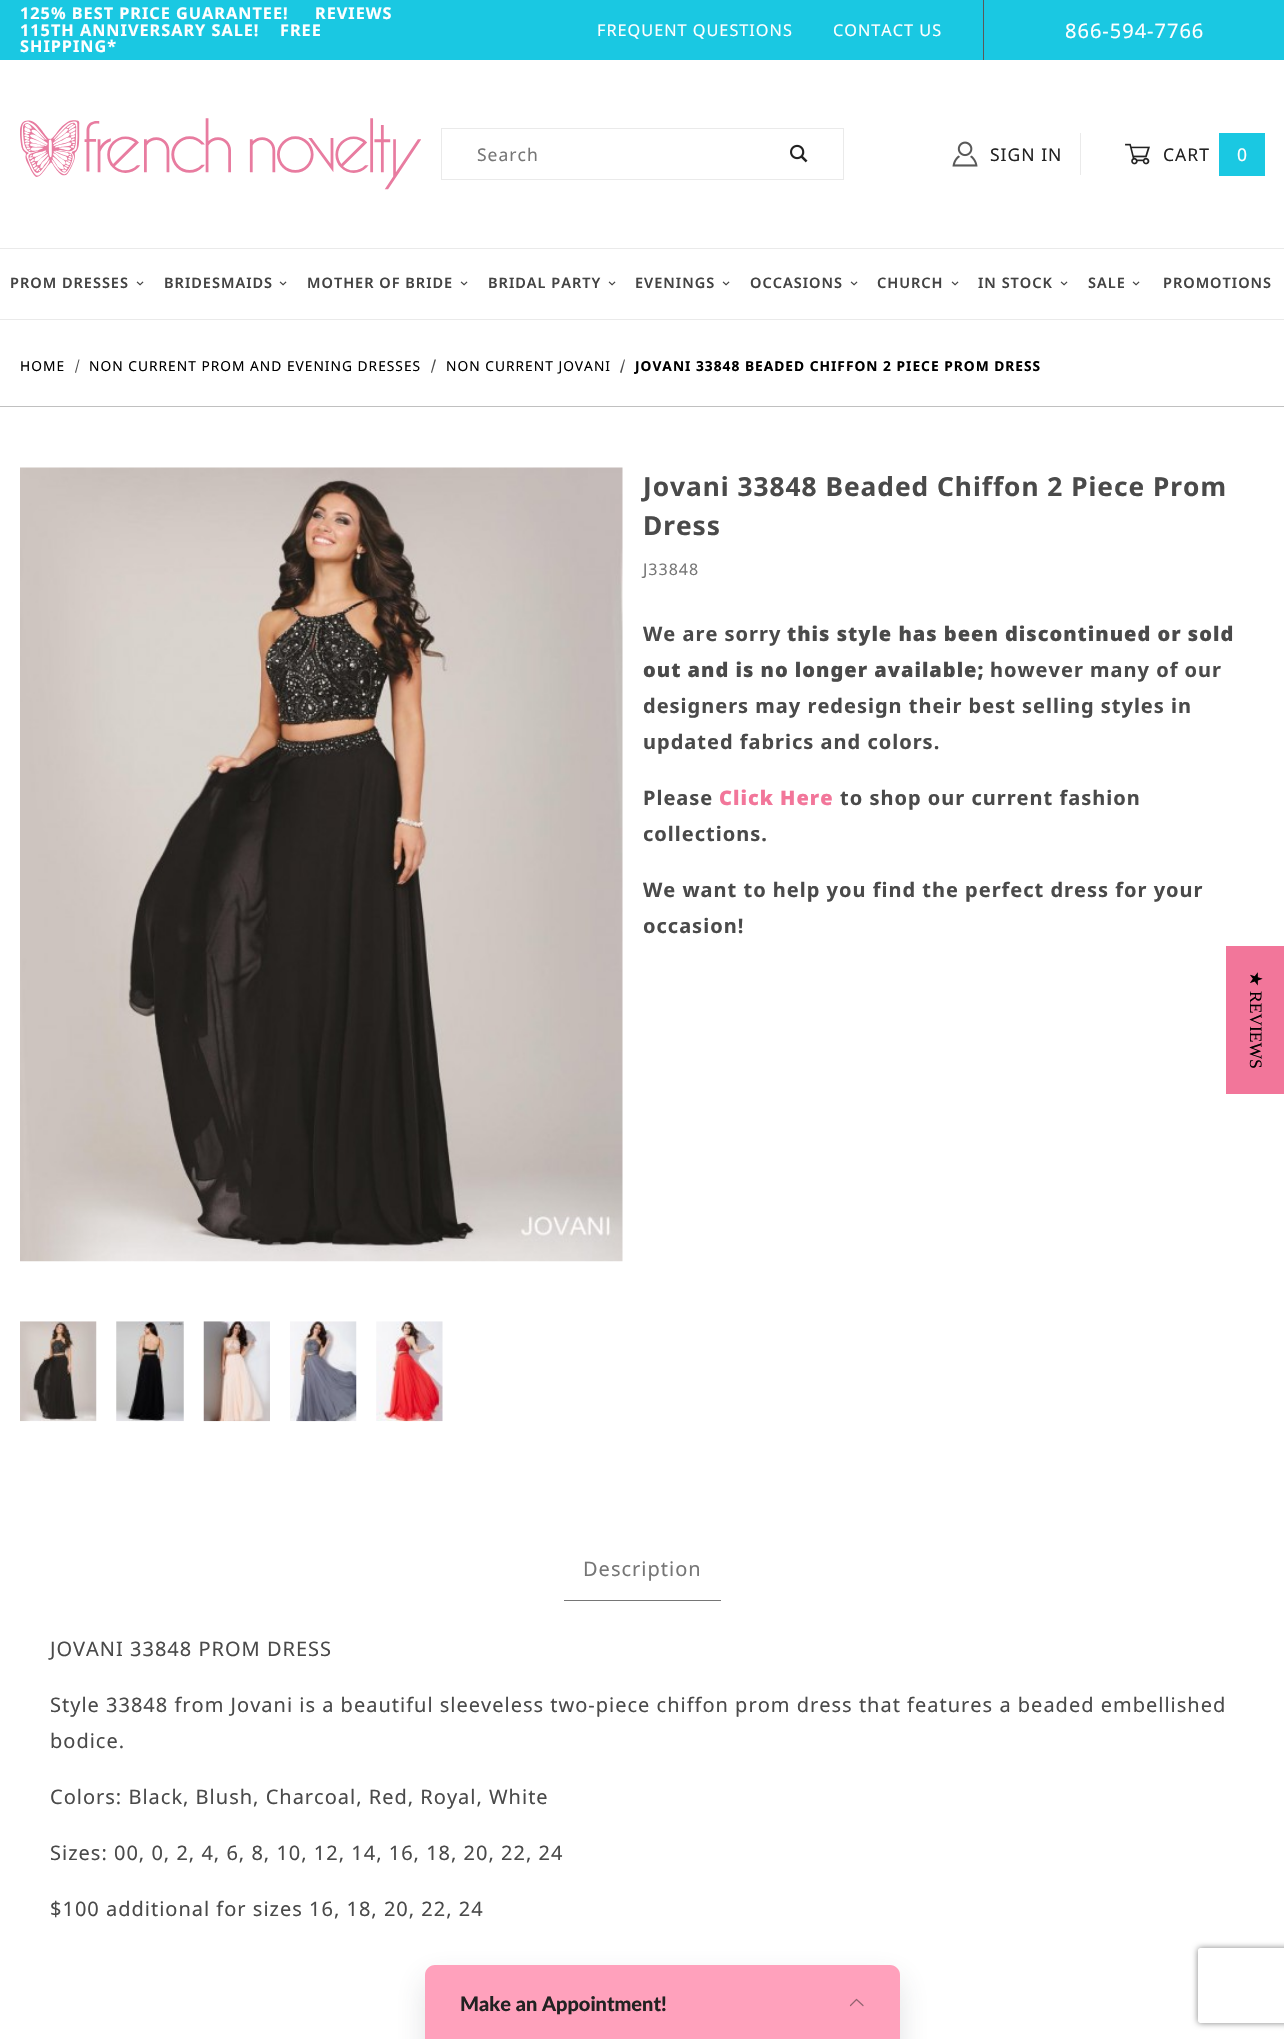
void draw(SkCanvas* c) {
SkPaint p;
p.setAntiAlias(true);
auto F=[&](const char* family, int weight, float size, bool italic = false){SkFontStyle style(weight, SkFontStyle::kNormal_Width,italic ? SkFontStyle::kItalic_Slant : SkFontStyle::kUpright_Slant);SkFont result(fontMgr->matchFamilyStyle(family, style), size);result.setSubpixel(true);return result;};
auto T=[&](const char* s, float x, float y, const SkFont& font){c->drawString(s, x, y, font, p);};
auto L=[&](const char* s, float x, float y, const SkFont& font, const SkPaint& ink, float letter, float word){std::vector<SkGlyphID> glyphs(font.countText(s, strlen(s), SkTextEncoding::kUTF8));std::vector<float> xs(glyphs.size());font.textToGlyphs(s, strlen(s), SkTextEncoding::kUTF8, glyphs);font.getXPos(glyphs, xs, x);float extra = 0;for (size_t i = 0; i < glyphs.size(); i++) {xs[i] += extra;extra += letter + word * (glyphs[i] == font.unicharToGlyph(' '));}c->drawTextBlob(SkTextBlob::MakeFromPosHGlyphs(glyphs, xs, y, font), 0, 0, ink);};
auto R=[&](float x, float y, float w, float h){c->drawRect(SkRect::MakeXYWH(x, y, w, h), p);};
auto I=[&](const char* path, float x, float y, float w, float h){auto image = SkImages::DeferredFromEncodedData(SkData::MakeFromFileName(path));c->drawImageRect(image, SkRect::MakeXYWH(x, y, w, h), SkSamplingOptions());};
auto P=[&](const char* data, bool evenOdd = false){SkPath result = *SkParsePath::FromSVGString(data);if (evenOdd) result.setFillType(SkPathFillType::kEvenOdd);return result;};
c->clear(0xffffffff);
p.setColor(0xffeaeaea);
R(0,248,1284,1);
p.setColor(0xff1ac8e2);
R(0,0,1284,60);
auto f1 = F("Noto Sans",700,16.25);
p.setColor(0xffffffff);
L("125% BEST PRICE GUARANTEE!",20,19,f1,p,1,0);
L("REVIEWS",315,19,f1,p,1,0);
L("115TH ANNIVERSARY SALE!",20,36,f1,p,1,0);
L("FREE",280,36,f1,p,1,0);
L("SHIPPING*",20,52,f1,p,1,0);
auto f2 = F("Noto Sans",400,16.25);
L("FREQUENT QUESTIONS",597,36,f2,p,1,0);
L("CONTACT US",833,36,f2,p,1,0);
p.setColor(0xff595959);
R(983,0,1,60);
auto f3 = F("Noto Sans",400,20);
p.setColor(0xffffffff);
L("866-594-7766",1065,38,f3,p,1,0);
I("1.png",20,118,401,72);
p.setStroke(true);
p.setStrokeWidth(1);
p.setColor(0xffeaeaea);
c->drawRect(SkRect::MakeXYWH(441.5,128.5,402,51),p);
auto f4 = F("Noto Sans",400,17.5);
p.setStroke(false);
p.setColor(0xff767676);
L("Search",477,161,f4,p,1,0);
I("2.png",790,144,18,19);
p.setColor(0xffeaeaea);
R(1080,133,1,42);
I("3.png",952,141,26,26);
p.setColor(0xff222222);
L("SIGN IN",990,161,f4,p,1,0);
I("4.png",1125,143,25,22);
L("CART",1163,161,f4,p,1,0);
p.setColor(0xff1ac8e2);
R(1219,133,46,43);
p.setColor(0xffffffff);
L("0",1237,161,f4,p,1,0);
p.setColor(0xffeaeaea);
R(0,319,1284,1);
auto f5 = F("Noto Sans",600,14.5);
p.setColor(0xff434343);
L("PROM DRESSES",10,288,f5,p,1,0);
auto f6 = F("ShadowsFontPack",400,7);
c->save();
c->rotate(90,137,280);
L("3",137,280,f6,p,1,0);
c->restore();
L("BRIDESMAIDS",164,288,f5,p,1,0);
c->save();
c->rotate(90,280,280);
L("3",280,280,f6,p,1,0);
c->restore();
L("MOTHER OF BRIDE",307,288,f5,p,1,0);
c->save();
c->rotate(90,461,280);
L("3",461,280,f6,p,1,0);
c->restore();
L("BRIDAL PARTY",488,288,f5,p,1,0);
c->save();
c->rotate(90,609,280);
L("3",609,280,f6,p,1,0);
c->restore();
L("EVENINGS",635,288,f5,p,1,0);
c->save();
c->rotate(90,723,280);
L("3",723,280,f6,p,1,0);
c->restore();
L("OCCASIONS",750,288,f5,p,1,0);
c->save();
c->rotate(90,851,280);
L("3",851,280,f6,p,1,0);
c->restore();
L("CHURCH",877,288,f5,p,1,0);
c->save();
c->rotate(90,952,280);
L("3",952,280,f6,p,1,0);
c->restore();
L("IN STOCK",978,288,f5,p,1,0);
c->save();
c->rotate(90,1061,280);
L("3",1061,280,f6,p,1,0);
c->restore();
L("SALE",1088,288,f5,p,1,0);
c->save();
c->rotate(90,1133,280);
L("3",1133,280,f6,p,1,0);
c->restore();
L("PROMOTIONS",1163,288,f5,p,1,0);
p.setColor(0xffc0c0c0);
R(0,406,1284,1);
auto f7 = F("Noto Sans",400,13.75);
p.setColor(0xff000000);
L("HOME",20,371,f7,p,1,0);
p.setColor(0xff4a4a4a);
c->drawPath(P("M78.5 359.5h1l-3.5 13.5l-1-.5z"),p);
p.setColor(0xff000000);
L("NON CURRENT PROM AND EVENING DRESSES",89,371,f7,p,1,0);
p.setColor(0xff4a4a4a);
c->drawPath(P("M434.5 359.5h1.5l-4 13.5l-1-.5z"),p);
p.setColor(0xff000000);
L("NON CURRENT JOVANI",446,371,f7,p,1,0);
p.setColor(0xff4a4a4a);
c->drawPath(P("M624 359.5h1l-3.5 13.5l-1.5-.5z"),p);
auto f8 = F("Noto Sans",700,13.75);
p.setColor(0xff000000);
L("JOVANI 33848 BEADED CHIFFON 2 PIECE PROM DRESS",635,371,f8,p,1,0);
I("5.png",20,467,603,795);
I("6.png",20,1321,77,101);
I("7.png",116,1321,68,101);
I("8.png",203,1321,67,101);
I("9.png",290,1321,67,101);
I("10.png",376,1321,67,101);
auto f9 = F("Noto Sans",700,26.25);
p.setColor(0xff4a4a4a);
L("Jovani 33848 Beaded Chiffon 2 Piece Prom",643,496,f9,p,1,0);
L("Dress",643,535,f9,p,1,0);
auto f10 = F("Noto Sans",400,16);
p.setColor(0xff767676);
L("J33848",643,575,f10,p,1,0);
auto f11 = F("Noto Sans",700,20);
p.setColor(0xff4a4a4a);
L("We are sorry",643,641,f11,p,1,0);
auto f12 = F("Noto Sans",900,20);
L("this style has been discontinued or sold",787,641,f12,p,1,0);
L("out and is no longer available;",643,677,f12,p,1,0);
L("however many of our",990,677,f11,p,1,0);
L("designers may redesign their best selling styles in",643,713,f11,p,1,0);
L("updated fabrics and colors.",643,749,f11,p,1,0);
L("Please",643,805,f11,p,1,0);
p.setColor(0xfff2769a);
L("Click Here",719,805,f12,p,1,0);
p.setColor(0xff4a4a4a);
L("to shop our current fashion",840,805,f11,p,1,0);
L("collections.",643,841,f11,p,1,0);
L("We want to help you find the perfect dress for your",643,897,f11,p,1,0);
L("occasion!",643,933,f11,p,1,0);
p.setColor(0xff767676);
R(564,1600,157,1);
L("Description",583,1576,f3,p,1,0);
p.setColor(0xff4a4a4a);
L("JOVANI 33848 PROM DRESS",50,1656,f3,p,1,0);
L("Style 33848 from Jovani is a beautiful sleeveless two-piece chiffon prom dress that features a beaded embellished",50,1712,f3,p,1,0);
L("bodice.",50,1748,f3,p,1,0);
L("Colors: Black, Blush, Charcoal, Red, Royal, White",50,1804,f3,p,1,0);
L("Sizes: 00, 0, 2, 4, 6, 8, 10, 12, 14, 16, 18, 20, 22, 24",50,1860,f3,p,1,0);
L("$100 additional for sizes 16, 18, 20, 22, 24",50,1916,f3,p,1,0);
p.setColor(0xfff2769a);
R(1226,946,58,148);
auto f13 = F("DejaVu Sans",400,17.5);
p.setColor(0xff000000);
c->save();
c->rotate(90,1250,971);
T("★",1250,971,f13);
c->restore();
auto f14 = F("Liberation Serif",400,17.5);
c->save();
c->rotate(90,1250,991);
T("REVIEWS",1250,991,f14);
c->restore();
p.setColor(0x26363d4d);
p.setMaskFilter(SkMaskFilter::MakeBlur(kNormal_SkBlurStyle, 15));
c->drawRoundRect(SkRect::MakeXYWH(425,1978,475,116),10,10,p);
p.setMaskFilter(nullptr);
p.setColor(0xffffa1bc);
c->drawPath(P("M435 1965h455c5.5 0 10 4.5 10 10v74h-475v-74c0-5.5 4.5-10 10-10z"),p);
auto f15 = F("Lato",900,20);
p.setColor(0xff222222);
T("Make an Appointment!",460,2011,f15);
p.setStroke(true);
p.setStrokeWidth(1.2);
p.setStrokeCap(SkPaint::kRound_Cap);
p.setStrokeJoin(SkPaint::kRound_Join);
p.setColor(0xff91626f);
c->drawPath(P("M863 2005.5l-6.5-6l-6 6"),p);
c->save();
c->clipPath(P("M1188 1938h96v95h-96zm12.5 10h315c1.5 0 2.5 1 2.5 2.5v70c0 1.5-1 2.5-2.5 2.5h-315c-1.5 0-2.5-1-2.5-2.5v-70c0-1.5 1-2.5 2.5-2.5z",true),true);
p.setStroke(false);
p.setColor(0xff808080);
p.setMaskFilter(SkMaskFilter::MakeBlur(kNormal_SkBlurStyle, 3));
c->drawRoundRect(SkRect::MakeXYWH(1198,1948,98,75),2.5,2.5,p);
p.setMaskFilter(nullptr);
c->restore();
}
